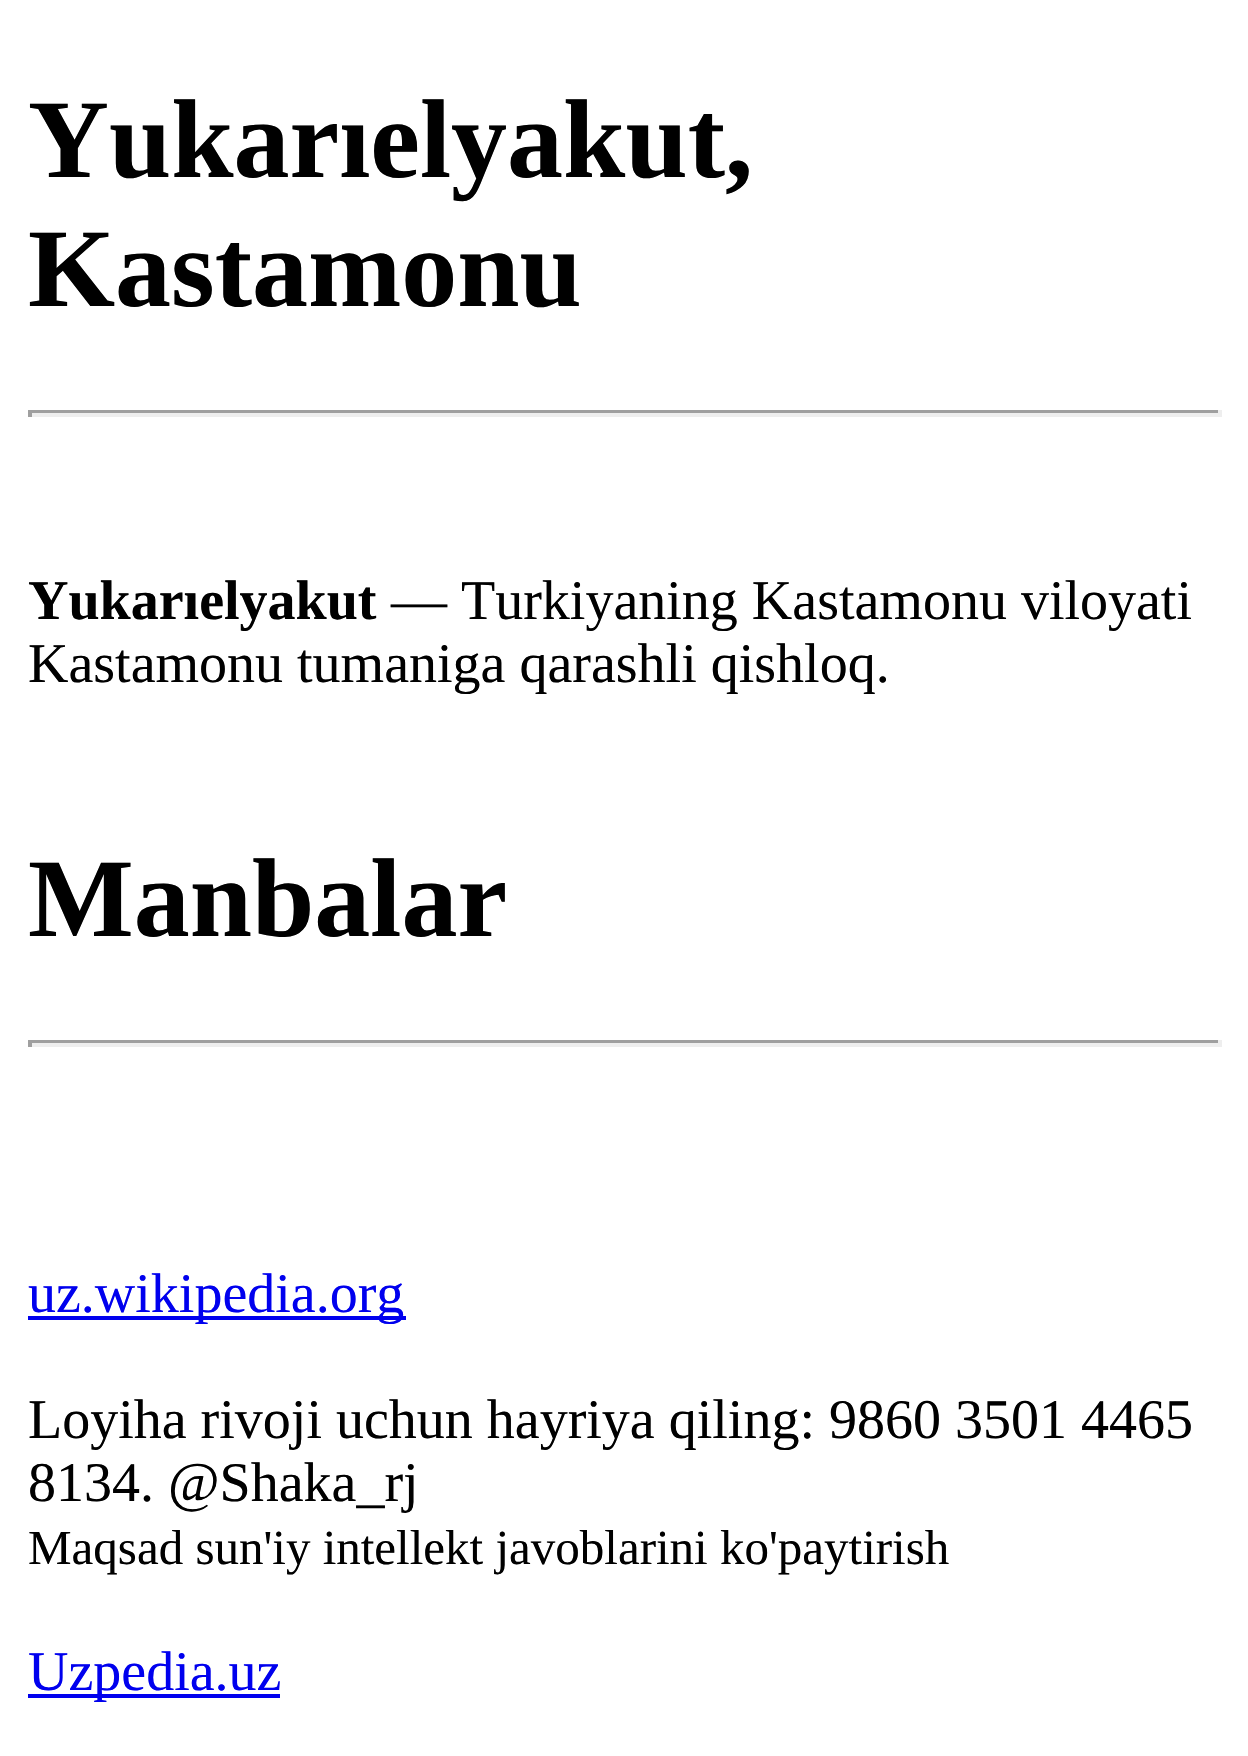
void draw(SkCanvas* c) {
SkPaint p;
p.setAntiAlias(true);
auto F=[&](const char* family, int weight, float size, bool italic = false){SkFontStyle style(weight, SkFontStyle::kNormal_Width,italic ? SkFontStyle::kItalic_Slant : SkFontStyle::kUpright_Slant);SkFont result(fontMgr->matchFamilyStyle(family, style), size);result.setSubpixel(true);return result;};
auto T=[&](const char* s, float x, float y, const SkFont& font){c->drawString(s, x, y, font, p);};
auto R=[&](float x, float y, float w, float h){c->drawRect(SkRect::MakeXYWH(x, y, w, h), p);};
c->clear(0xffffffff);
auto f1 = F("Liberation Serif",700,112);
p.setColor(0xff000000);
T("Yukarıelyakut,",28,177,f1);
T("Kastamonu",28,306,f1);
p.setColor(0xff9f9f9f);
R(28,410,1194,3);
p.setColor(0xffeeeeee);
R(1218,410,4,7);
R(28,413,1194,4);
p.setColor(0xff9f9f9f);
R(28,410,4,7);
auto f2 = F("Liberation Serif",700,56);
p.setColor(0xff000000);
T("Yukarıelyakut",28,619,f2);
auto f3 = F("Liberation Serif",400,56);
T("— Turkiyaning Kastamonu viloyati",391,619,f3);
T("Kastamonu tumaniga qarashli qishloq.",28,682,f3);
T("Manbalar",28,936,f1);
p.setColor(0xff9f9f9f);
R(28,1040,1194,3);
p.setColor(0xffeeeeee);
R(1218,1040,4,7);
R(28,1043,1194,4);
p.setColor(0xff9f9f9f);
R(28,1040,4,7);
p.setColor(0xff0000ee);
R(28,1316,378,4);
T("uz.wikipedia.org",28,1312,f3);
p.setColor(0xff000000);
T("Loyiha rivoji uchun hayriya qiling: 9860 3501 4465",28,1438,f3);
T("8134. @Shaka_rj",28,1501,f3);
auto f4 = F("Liberation Serif",400,49);
T("Maqsad sun'iy intellekt javoblarini ko'paytirish",28,1564,f4);
p.setColor(0xff0000ee);
R(28,1694,252,4);
T("Uzpedia.uz",28,1690,f3);
}
